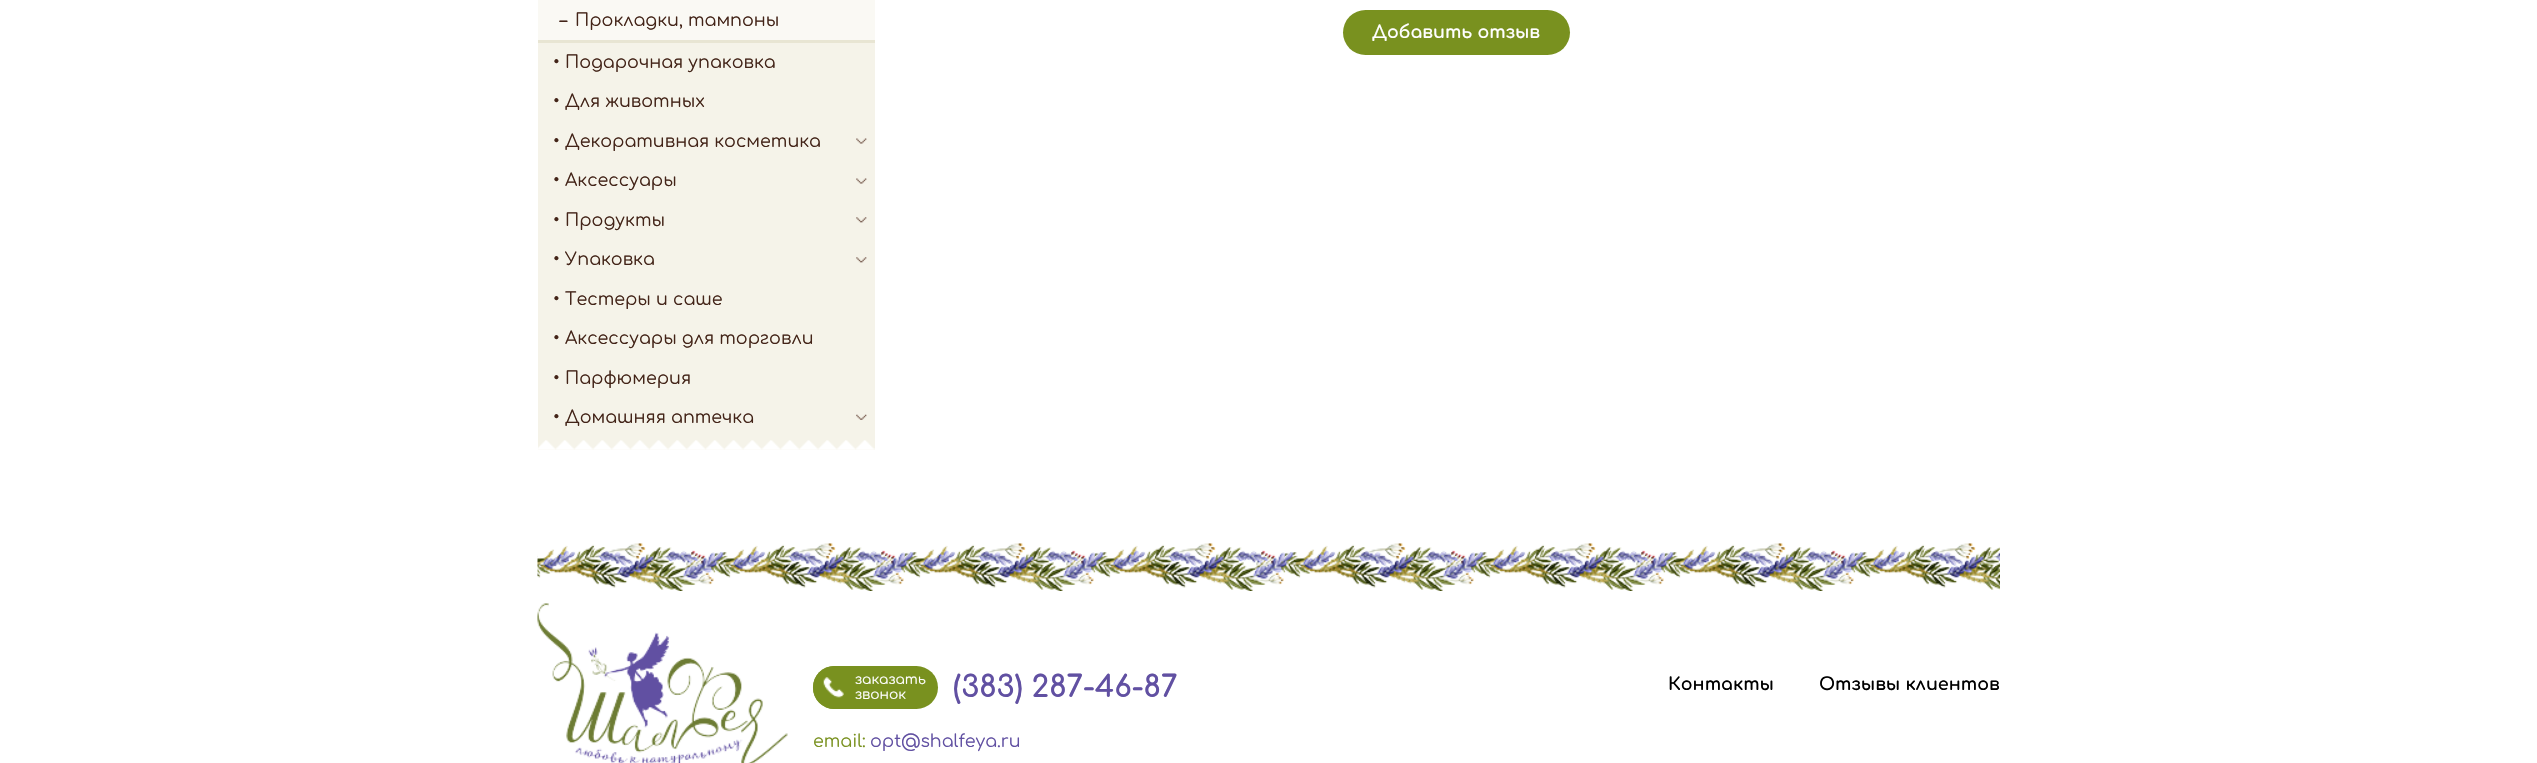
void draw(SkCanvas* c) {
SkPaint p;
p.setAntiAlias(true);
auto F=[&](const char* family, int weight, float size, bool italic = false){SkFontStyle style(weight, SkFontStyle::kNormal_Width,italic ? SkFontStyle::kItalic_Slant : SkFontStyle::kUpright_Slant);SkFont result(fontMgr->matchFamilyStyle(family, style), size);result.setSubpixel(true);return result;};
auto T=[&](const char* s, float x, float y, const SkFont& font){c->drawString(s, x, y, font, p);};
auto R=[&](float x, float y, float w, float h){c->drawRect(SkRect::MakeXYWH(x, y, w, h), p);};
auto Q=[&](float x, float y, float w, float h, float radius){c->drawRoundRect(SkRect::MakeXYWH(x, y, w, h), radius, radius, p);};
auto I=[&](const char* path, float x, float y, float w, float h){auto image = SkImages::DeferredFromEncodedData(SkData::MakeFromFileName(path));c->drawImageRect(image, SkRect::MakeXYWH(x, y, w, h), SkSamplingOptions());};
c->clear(0xffffffff);
p.setColor(0xfff5f3e9);
R(538,43,337,407);
p.setColor(0xffe8e5d3);
R(538,40,337,3);
p.setColor(0xfffaf9f4);
R(538,0,337,40);
auto f1 = F("Comfortaa",400,17.5);
p.setColor(0xff432418);
T("–",560,26,f1);
T("Прокладки, тампоны",575,26,f1);
T("•",553,68,f1);
T("Подарочная упаковка",565,68,f1);
T("•",553,107,f1);
T("Для животных",565,107,f1);
T("•",553,147,f1);
T("Декоративная косметика",565,147,f1);
I("1.png",856,138,11,6);
T("•",553,186,f1);
T("Аксессуары",565,186,f1);
I("1.png",856,178,11,6);
T("•",553,226,f1);
T("Продукты",565,226,f1);
I("2.png",856,217,11,6);
T("•",553,265,f1);
T("Упаковка",565,265,f1);
I("2.png",856,257,11,6);
T("•",553,305,f1);
T("Тестеры и саше",565,305,f1);
T("•",553,344,f1);
T("Аксессуары для торговли",565,344,f1);
T("•",553,384,f1);
T("Парфюмерия",565,384,f1);
T("•",553,423,f1);
T("Домашняя аптечка",565,423,f1);
I("3.png",856,414,11,6);
I("4.png",538,440,337,10);
p.setColor(0xff79911f);
Q(1343,10,227,45,22.5);
auto f2 = F("Comfortaa",700,17.5);
p.setColor(0xffffffff);
T("Добавить отзыв",1372,38,f2);
I("5.png",537,543,1463,48);
I("6.png",537,603,251,160);
p.setColor(0xff79911f);
Q(813,666,125,43,21.5);
Q(813,666,42,43,21);
I("7.png",823,677,21,21);
auto f3 = F("Comfortaa",400,13.75);
p.setColor(0xffffffff);
T("заказать",855,684,f3);
T("звонок",855,699,f3);
auto f4 = F("Comfortaa",700,30);
p.setColor(0xff6150a2);
T("(383) 287-46-87",953,697,f4);
p.setColor(0xff79911f);
T("email:",813,747,f1);
p.setColor(0xff6150a2);
T("opt@shalfeya.ru",870,747,f1);
p.setColor(0xff000000);
T("Контакты",1668,690,f2);
T("Отзывы клиентов",1819,690,f2);
}
